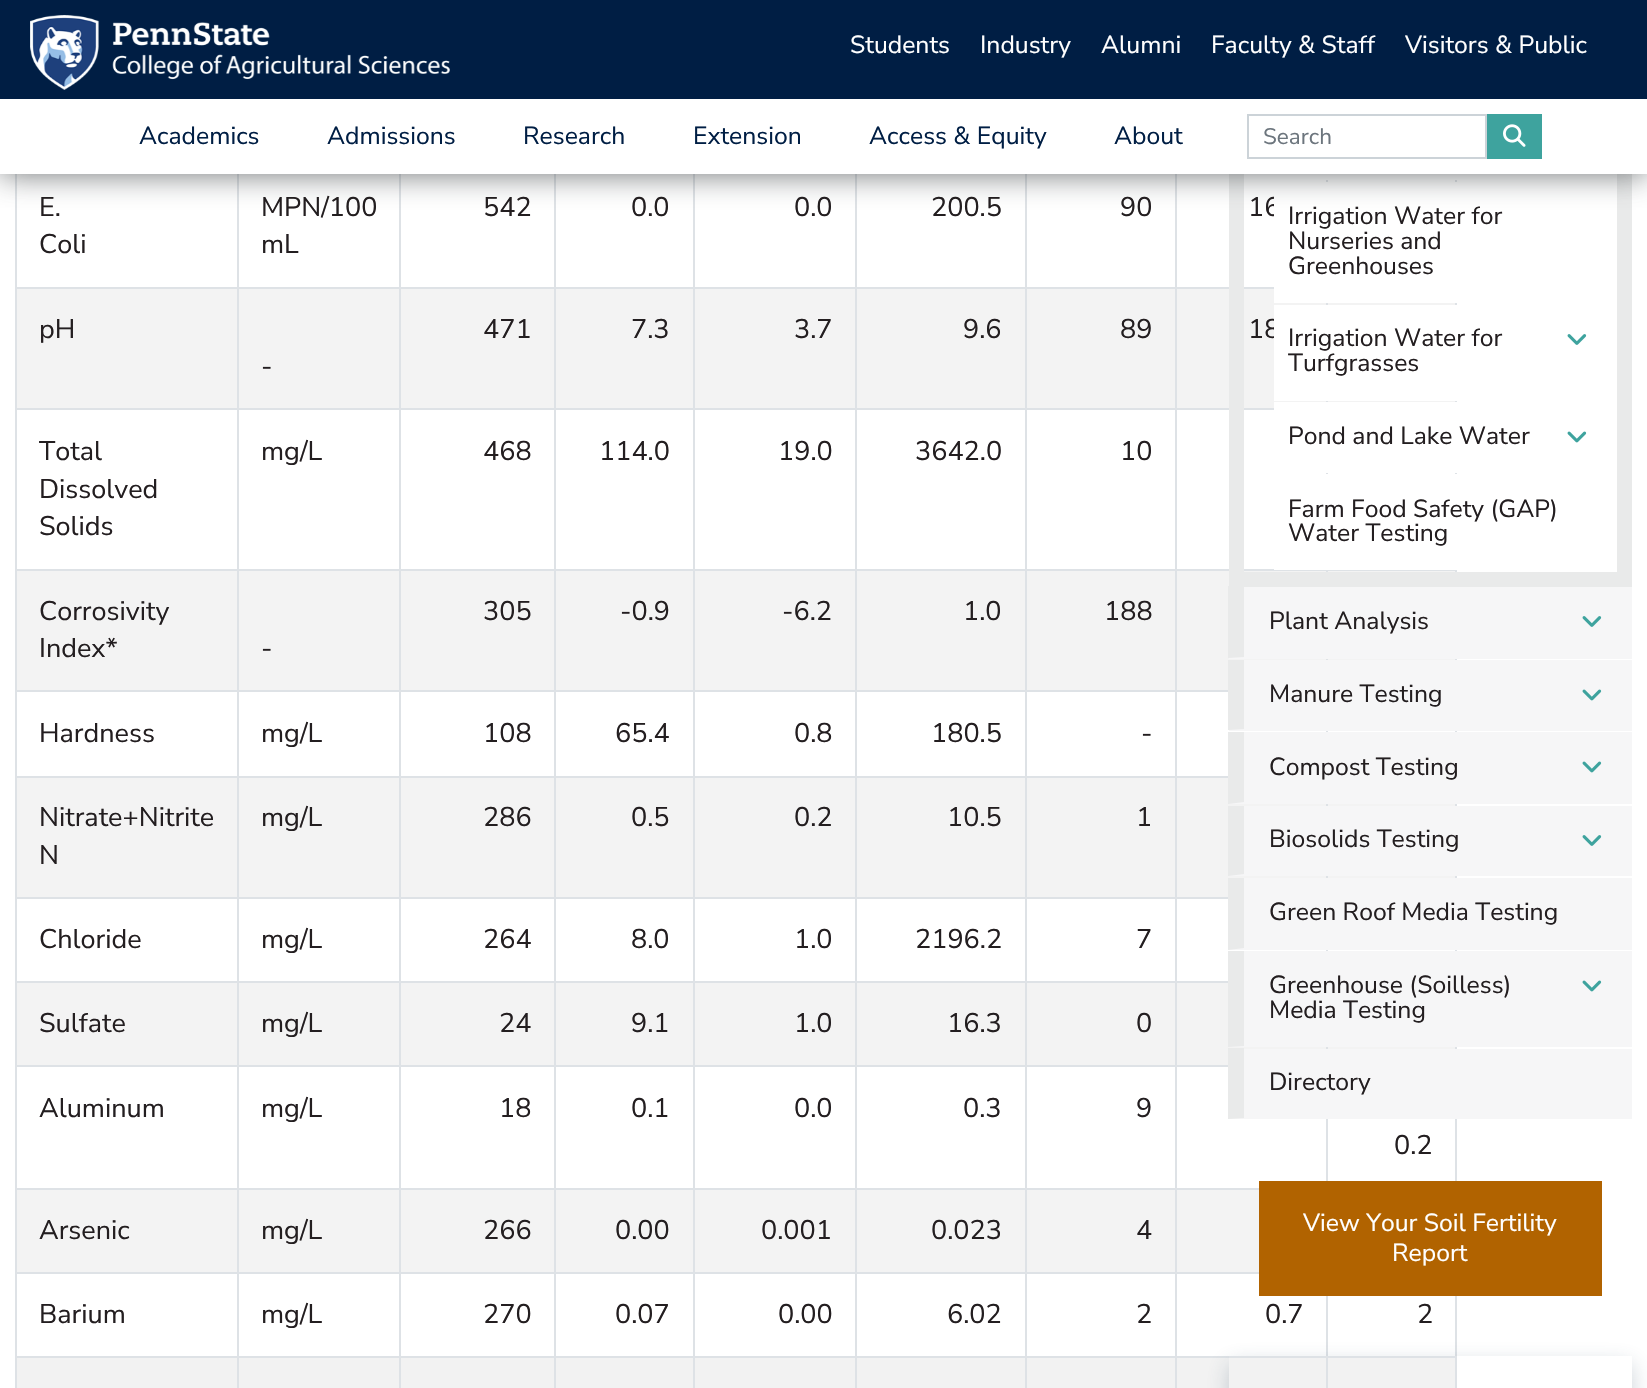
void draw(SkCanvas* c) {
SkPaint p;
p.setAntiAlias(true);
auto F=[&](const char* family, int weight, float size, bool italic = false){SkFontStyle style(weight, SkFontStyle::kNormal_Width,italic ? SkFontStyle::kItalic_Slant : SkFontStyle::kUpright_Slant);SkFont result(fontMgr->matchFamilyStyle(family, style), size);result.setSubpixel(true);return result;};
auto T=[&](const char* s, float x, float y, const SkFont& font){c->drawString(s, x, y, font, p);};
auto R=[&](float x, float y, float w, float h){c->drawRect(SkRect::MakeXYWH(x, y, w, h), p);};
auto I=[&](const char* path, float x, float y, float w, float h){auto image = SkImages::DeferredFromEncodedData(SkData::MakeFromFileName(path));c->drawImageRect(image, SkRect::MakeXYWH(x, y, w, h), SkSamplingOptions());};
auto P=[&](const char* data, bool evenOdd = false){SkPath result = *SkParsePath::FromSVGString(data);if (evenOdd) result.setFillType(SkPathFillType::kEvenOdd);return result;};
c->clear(0xffffffff);
p.setColor(0xffdee2e6);
R(1455,180,2,1208);
R(15,174,2,1214);
R(1326,180,2,2);
R(1175,287,99,2);
p.setColor(0xfff3f3f3);
R(17,289,1438,119);
p.setColor(0xffdee2e6);
R(1175,408,99,2);
R(1326,570,131,1);
p.setColor(0xfff3f3f3);
R(17,571,1438,119);
p.setColor(0xffdee2e6);
R(1326,569,2,91);
R(1175,569,153,2);
R(1175,690,53,2);
R(1175,776,53,2);
p.setColor(0xfff3f3f3);
R(17,778,1438,119);
p.setColor(0xffdee2e6);
R(1175,897,53,2);
R(1175,981,53,2);
p.setColor(0xfff3f3f3);
R(17,983,1438,82);
p.setColor(0xffdee2e6);
R(1175,1065,53,2);
R(1175,1188,84,2);
p.setColor(0xfff3f3f3);
R(17,1190,1242,82);
p.setColor(0xffdee2e6);
R(1175,1272,84,2);
R(1326,1356,131,2);
p.setColor(0xfff2f2f2);
R(17,1358,1438,30);
p.setColor(0xffdee2e6);
R(1326,1356,2,32);
R(1175,1356,153,2);
R(1175,1356,2,32);
R(1025,1356,151,2);
R(1175,1272,2,86);
R(1025,1272,151,2);
R(1175,1188,2,86);
R(1025,1188,151,2);
R(1175,1065,2,125);
R(1025,1065,151,2);
R(1175,981,2,86);
R(1025,981,151,2);
R(1175,897,2,86);
R(1025,897,151,2);
R(1175,776,2,123);
R(1025,776,151,2);
R(1175,690,2,87);
R(1025,690,151,2);
R(1175,569,2,123);
R(1025,569,151,2);
R(1175,408,2,162);
R(1025,408,151,2);
R(1175,287,2,123);
R(1025,287,151,2);
R(1025,1356,2,32);
R(855,1356,171,2);
R(1025,1272,2,86);
R(855,1272,171,2);
R(1025,1188,2,86);
R(855,1188,171,2);
R(1025,1065,2,125);
R(855,1065,171,2);
R(1025,981,2,86);
R(855,981,171,2);
R(1025,897,2,86);
R(855,897,171,2);
R(1025,776,2,123);
R(855,776,171,2);
R(1025,690,2,87);
R(855,690,171,2);
R(1025,569,2,123);
R(855,569,171,2);
R(1025,408,2,162);
R(855,408,171,2);
R(1025,287,2,123);
R(855,287,171,2);
R(855,1356,2,32);
R(693,1356,164,2);
R(855,1272,2,86);
R(693,1272,164,2);
R(855,1188,2,86);
R(693,1188,164,2);
R(855,1065,2,125);
R(693,1065,164,2);
R(855,981,2,86);
R(693,981,164,2);
R(855,897,2,86);
R(693,897,164,2);
R(855,776,2,123);
R(693,776,164,2);
R(855,690,2,87);
R(693,690,164,2);
R(855,569,2,123);
R(693,569,164,2);
R(855,408,2,162);
R(693,408,164,2);
R(855,287,2,123);
R(693,287,164,2);
R(693,1356,2,32);
R(554,1356,141,2);
R(693,1272,2,86);
R(554,1272,141,2);
R(693,1188,2,86);
R(554,1188,141,2);
R(693,1065,2,125);
R(554,1065,141,2);
R(693,981,2,86);
R(554,981,141,2);
R(693,897,2,86);
R(554,897,141,2);
R(693,776,2,123);
R(554,776,141,2);
R(693,690,2,87);
R(554,690,141,2);
R(693,569,2,123);
R(554,569,141,2);
R(693,408,2,162);
R(554,408,141,2);
R(693,287,2,123);
R(554,287,141,2);
R(554,1356,2,32);
R(399,1356,156,2);
R(554,1272,2,86);
R(399,1272,156,2);
R(554,1188,2,86);
R(399,1188,156,2);
R(554,1065,2,125);
R(399,1065,156,2);
R(554,981,2,86);
R(399,981,156,2);
R(554,897,2,86);
R(399,897,156,2);
R(554,776,2,123);
R(399,776,156,2);
R(554,690,2,87);
R(399,690,156,2);
R(554,569,2,123);
R(399,569,156,2);
R(554,408,2,162);
R(399,408,156,2);
R(554,287,2,123);
R(399,287,156,2);
R(399,1356,2,32);
R(237,1356,164,2);
R(399,1272,2,86);
R(237,1272,164,2);
R(399,1188,2,86);
R(237,1188,164,2);
R(399,1065,2,125);
R(237,1065,164,2);
R(399,981,2,86);
R(237,981,164,2);
R(399,897,2,86);
R(237,897,164,2);
R(399,776,2,123);
R(237,776,164,2);
R(399,690,2,87);
R(237,690,164,2);
R(399,569,2,123);
R(237,569,164,2);
R(399,408,2,162);
R(237,408,164,2);
R(399,287,2,123);
R(237,287,164,2);
R(237,1356,2,32);
R(15,1356,224,2);
R(237,1272,2,86);
R(15,1272,224,2);
R(237,1188,2,86);
R(15,1188,224,2);
R(237,1065,2,125);
R(15,1065,224,2);
R(237,981,2,86);
R(15,981,224,2);
R(237,897,2,86);
R(15,897,224,2);
R(237,776,2,123);
R(15,776,224,2);
R(237,690,2,87);
R(15,690,224,2);
R(237,569,2,123);
R(15,569,224,2);
R(237,408,2,162);
R(15,408,224,2);
R(237,287,2,123);
R(15,287,224,2);
R(237,174,2,114);
R(399,174,2,114);
R(554,174,2,114);
R(693,174,2,114);
R(855,174,2,114);
R(1025,174,2,114);
R(1175,174,2,114);
p.setColor(0xffe9eaea);
R(1617,174,15,398);
R(1229,174,15,412);
auto f1 = F("Nunito Sans",400,27);
p.setColor(0xff231e20);
T("16",1248,216,f1);
p.setColor(0xffffffff);
R(1274,182,183,121);
p.setColor(0xd954585a);
p.setMaskFilter(SkMaskFilter::MakeBlur(kNormal_SkBlurStyle, 15));
c->drawRect(SkRect::MakeXYWH(0,0,1647,174),p);
p.setMaskFilter(nullptr);
p.setColor(0xff001e44);
R(0,0,1647,99);
I("1.png",30,15,420,75);
auto f2 = F("Nunito Sans",400,24.75);
p.setColor(0xffffffff);
T("Students",850,53,f2);
T("Industry",980,53,f2);
T("Alumni",1101,53,f2);
T("Faculty & Staff",1211,53,f2);
T("Visitors & Public",1405,53,f2);
R(0,99,1647,75);
p.setColor(0xff001e44);
T("Academics",139,144,f2);
T("Admissions",327,144,f2);
T("Research",523,144,f2);
T("Extension",693,144,f2);
T("Access & Equity",869,144,f2);
T("About",1114,144,f2);
p.setStroke(true);
p.setStrokeWidth(2);
p.setColor(0xffccd3d8);
c->drawRect(SkRect::MakeXYWH(1248,115,238,43),p);
auto f3 = F("Nunito Sans",400,22.5);
p.setStroke(false);
p.setColor(0xff6c757d);
T("Search",1263,144,f3);
p.setColor(0xff3ea39e);
R(1487,114,55,45);
I("2.png",1503,124,23,23);
p.setColor(0xff231e20);
T("E.",39,216,f1);
T("Coli",39,253,f1);
T("MPN/100",261,216,f1);
T("mL",261,253,f1);
T("542",483,216,f1);
T("0.0",631,216,f1);
T("0.0",794,216,f1);
T("200.5",931,216,f1);
T("90",1120,216,f1);
T("pH",39,338,f1);
T("471",483,338,f1);
T("7.3",631,338,f1);
T("3.7",794,338,f1);
T("9.6",963,338,f1);
T("89",1120,338,f1);
T("18",1248,338,f1);
p.setColor(0xffdee2e6);
R(1326,303,2,107);
p.setColor(0xff231e20);
T("-",261,375,f1);
T("Total",39,460,f1);
T("Dissolved",39,498,f1);
T("Solids",39,535,f1);
T("mg/L",261,460,f1);
T("468",483,460,f1);
T("114.0",599,460,f1);
T("19.0",778,460,f1);
T("3642.0",915,460,f1);
T("10",1120,460,f1);
p.setColor(0xffdee2e6);
R(1326,473,2,1);
p.setColor(0xff231e20);
T("Corrosivity",39,620,f1);
T("Index*",39,657,f1);
T("305",483,620,f1);
T("-0.9",620,620,f1);
T("-6.2",782,620,f1);
T("1.0",963,620,f1);
T("188",1104,620,f1);
T("-",261,657,f1);
T("Hardness",39,742,f1);
T("mg/L",261,742,f1);
T("108",483,742,f1);
T("65.4",615,742,f1);
T("0.8",794,742,f1);
T("180.5",931,742,f1);
p.setColor(0xffdee2e6);
R(1326,731,2,1);
p.setColor(0xff231e20);
T("-",1141,742,f1);
T("Nitrate+Nitrite",39,826,f1);
T("N",39,864,f1);
T("mg/L",261,826,f1);
T("286",483,826,f1);
T("0.5",631,826,f1);
T("0.2",794,826,f1);
T("10.5",947,826,f1);
T("1",1136,826,f1);
p.setColor(0xffdee2e6);
R(1326,804,2,74);
p.setColor(0xff231e20);
T("Chloride",39,948,f1);
T("mg/L",261,948,f1);
T("264",483,948,f1);
T("8.0",631,948,f1);
T("1.0",794,948,f1);
T("2196.2",915,948,f1);
T("7",1136,948,f1);
p.setColor(0xffdee2e6);
R(1326,950,2,1);
p.setColor(0xff231e20);
T("Sulfate",39,1032,f1);
T("mg/L",261,1032,f1);
T("24",499,1032,f1);
T("9.1",631,1032,f1);
T("1.0",794,1032,f1);
T("16.3",947,1032,f1);
T("0",1136,1032,f1);
p.setColor(0xffdee2e6);
R(1326,1047,2,2);
p.setColor(0xff231e20);
T("Aluminum",39,1117,f1);
T("mg/L",261,1117,f1);
T("18",499,1117,f1);
T("0.1",631,1117,f1);
T("0.0",794,1117,f1);
T("0.3",963,1117,f1);
T("9",1136,1117,f1);
p.setColor(0xffdee2e6);
R(1326,1119,2,62);
p.setColor(0xff231e20);
T("0.2",1394,1154,f1);
T("Arsenic",39,1239,f1);
T("mg/L",261,1239,f1);
T("266",483,1239,f1);
T("0.00",615,1239,f1);
T("0.001",761,1239,f1);
T("0.023",931,1239,f1);
T("4",1136,1239,f1);
T("Barium",39,1323,f1);
T("mg/L",261,1323,f1);
T("270",483,1323,f1);
T("0.07",615,1323,f1);
T("0.00",778,1323,f1);
T("6.02",947,1323,f1);
T("2",1136,1323,f1);
T("0.7",1265,1323,f1);
p.setColor(0xffdee2e6);
R(1326,1296,2,62);
p.setColor(0xff231e20);
T("2",1417,1323,f1);
p.setColor(0xffe9eaea);
R(1244,572,388,15);
p.setColor(0xff231e20);
T("Irrigation Water for",1288,224,f2);
T("Nurseries and",1288,249,f2);
T("Greenhouses",1288,274,f2);
p.setColor(0xffffffff);
R(1274,305,183,96);
p.setColor(0xff231e20);
T("Irrigation Water for",1288,346,f2);
T("Turfgrasses",1288,371,f2);
I("3.png",1567,334,20,11);
p.setColor(0xffffffff);
R(1274,402,183,71);
p.setColor(0xff231e20);
T("Pond and Lake Water",1288,444,f2);
I("4.png",1567,431,20,12);
p.setColor(0xffffffff);
R(1274,474,183,96);
p.setColor(0xff231e20);
T("Farm Food Safety (GAP)",1288,517,f2);
T("Water Testing",1288,541,f2);
p.setColor(0xfff6f6f7);
R(1229,587,403,72);
p.setColor(0xffe9eaea);
c->drawPath(P("M1228 658v-72h16v71z"),p);
p.setColor(0xff231e20);
T("Plant Analysis",1269,629,f2);
I("5.png",1582,616,20,11);
p.setColor(0xfff6f6f7);
R(1229,660,403,71);
p.setColor(0xffe9eaea);
c->drawPath(P("M1228 730v-70h16v69z"),p);
p.setColor(0xff231e20);
T("Manure Testing",1269,702,f2);
I("6.png",1582,689,20,12);
p.setColor(0xfff6f6f7);
R(1229,732,403,72);
p.setColor(0xffe9eaea);
c->drawPath(P("M1228 804v-72h16v70z"),p);
p.setColor(0xff231e20);
T("Compost Testing",1269,775,f2);
I("6.png",1582,761,20,12);
p.setColor(0xfff6f6f7);
R(1229,806,403,70);
p.setColor(0xffe9eaea);
c->drawPath(P("M1228 876v-70h16v68z"),p);
p.setColor(0xff231e20);
T("Biosolids Testing",1269,847,f2);
I("5.png",1582,835,20,11);
p.setColor(0xfff6f6f7);
R(1229,878,403,72);
p.setColor(0xffe9eaea);
c->drawPath(P("M1228 950v-72h16v70z"),p);
p.setColor(0xff231e20);
T("Green Roof Media Testing",1269,920,f2);
p.setColor(0xfff6f6f7);
R(1229,951,403,96);
p.setColor(0xffe9eaea);
c->drawPath(P("M1228 1047v-96h16v95z"),p);
p.setColor(0xff231e20);
T("Greenhouse (Soilless)",1269,993,f2);
T("Media Testing",1269,1018,f2);
I("6.png",1582,980,20,12);
p.setColor(0xfff6f6f7);
R(1229,1049,403,70);
p.setColor(0xffe9eaea);
c->drawPath(P("M1228 1119v-71h16v70z"),p);
p.setColor(0xff231e20);
T("Directory",1269,1090,f2);
p.setColor(0xffb16300);
R(1259,1181,343,115);
p.setColor(0xffffffff);
T("View Your Soil Fertility",1303,1231,f2);
T("Report",1392,1261,f2);
c->save();
c->clipPath(P("M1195 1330h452v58h-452zm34 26h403v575h-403z",true),true);
p.setColor(0x40314d64);
p.setMaskFilter(SkMaskFilter::MakeBlur(kNormal_SkBlurStyle, 11));
c->drawRect(SkRect::MakeXYWH(1229,1364,403,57),p);
p.setMaskFilter(nullptr);
c->restore();
}
